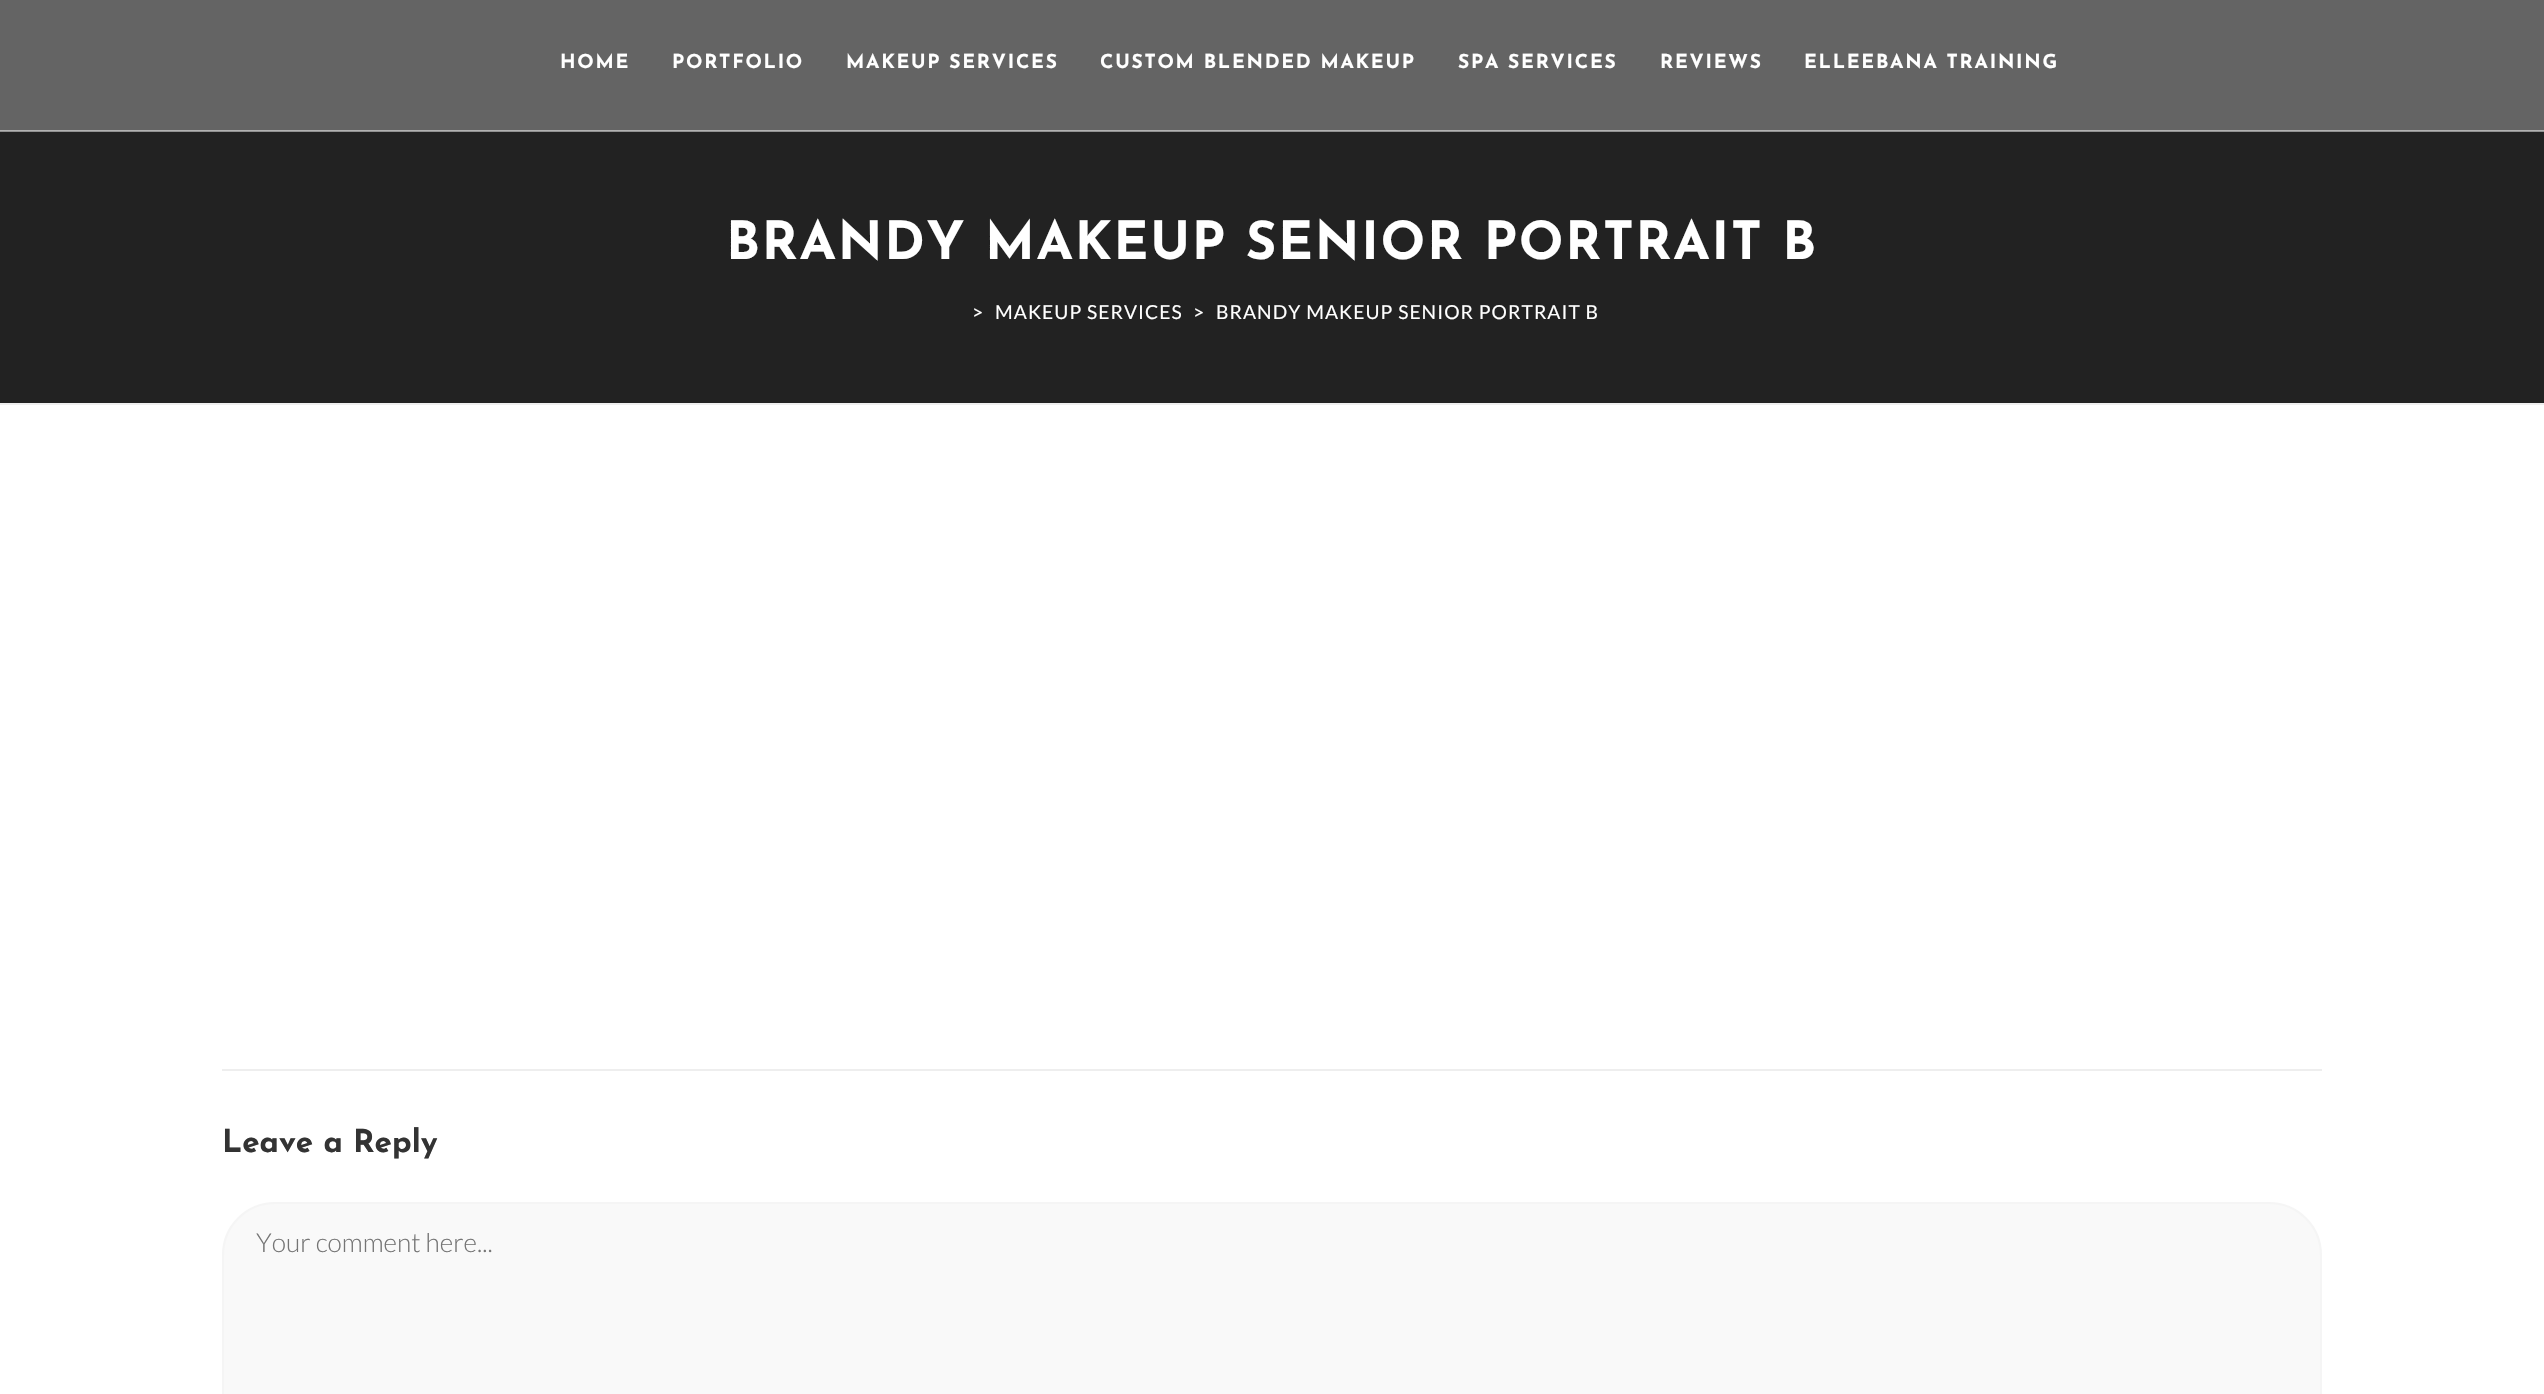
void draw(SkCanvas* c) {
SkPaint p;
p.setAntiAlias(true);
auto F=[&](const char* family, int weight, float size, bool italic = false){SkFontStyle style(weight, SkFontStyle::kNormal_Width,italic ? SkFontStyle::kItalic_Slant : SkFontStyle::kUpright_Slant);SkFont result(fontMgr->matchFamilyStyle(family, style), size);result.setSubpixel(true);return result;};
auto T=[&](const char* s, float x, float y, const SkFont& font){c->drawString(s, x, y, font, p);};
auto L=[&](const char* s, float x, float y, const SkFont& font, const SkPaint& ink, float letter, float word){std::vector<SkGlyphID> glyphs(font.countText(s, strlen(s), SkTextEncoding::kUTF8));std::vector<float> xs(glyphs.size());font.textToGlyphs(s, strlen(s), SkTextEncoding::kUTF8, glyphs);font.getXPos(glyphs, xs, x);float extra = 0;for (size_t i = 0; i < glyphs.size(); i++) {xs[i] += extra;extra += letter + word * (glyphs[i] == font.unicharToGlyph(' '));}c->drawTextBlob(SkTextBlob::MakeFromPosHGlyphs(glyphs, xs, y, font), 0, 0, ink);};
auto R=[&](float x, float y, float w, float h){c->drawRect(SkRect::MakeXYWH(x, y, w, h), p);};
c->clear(0xffffffff);
p.setColor(0xff646464);
R(0,0,2544,130);
p.setColor(0xffb2b2b2);
R(0,130,2544,1);
auto f1 = F("Josefin Sans",700,19.25);
p.setColor(0xffffffff);
L("HOME",560,68,f1,p,1.75,0);
L("PORTFOLIO",672,68,f1,p,1.75,0);
L("MAKEUP SERVICES",846,68,f1,p,1.75,0);
L("CUSTOM BLENDED MAKEUP",1100,68,f1,p,1.75,0);
L("SPA SERVICES",1458,68,f1,p,1.75,0);
L("REVIEWS",1660,68,f1,p,1.75,0);
L("ELLEEBANA TRAINING",1804,68,f1,p,1.75,0);
p.setColor(0xff222222);
R(0,132,2544,271);
p.setColor(0xff919191);
R(0,131,2544,1);
p.setColor(0xffeeeeee);
R(0,403,2544,2);
auto f2 = F("Josefin Sans",700,52.5);
p.setColor(0xffffffff);
L("BRANDY MAKEUP SENIOR PORTRAIT B",726,259,f2,p,1.75,0);
auto f3 = F("Lato",400,19.25);
L(">",972,319,f3,p,1.05,0);
L("MAKEUP SERVICES",995,319,f3,p,1.05,0);
L(">",1193,319,f3,p,1.05,0);
L("BRANDY MAKEUP SENIOR PORTRAIT B",1216,319,f3,p,1.05,0);
p.setColor(0xffeeeeee);
R(222,1069,2100,2);
auto f4 = F("Josefin Sans",700,31.5);
p.setColor(0xff333333);
T("Leave a Reply",222,1152,f4);
p.setColor(0xfff9f9f9);
c->drawRoundRect(SkRect::MakeXYWH(223,1203,2098,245),52,52,p);
p.setStroke(true);
p.setStrokeWidth(2);
p.setColor(0xfff5f5f5);
c->drawRoundRect(SkRect::MakeXYWH(223,1203,2098,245),52,52,p);
auto f5 = F("Lato",300,26.25);
p.setStroke(false);
p.setColor(0xff757575);
T("Your comment here...",256,1252,f5);
}
